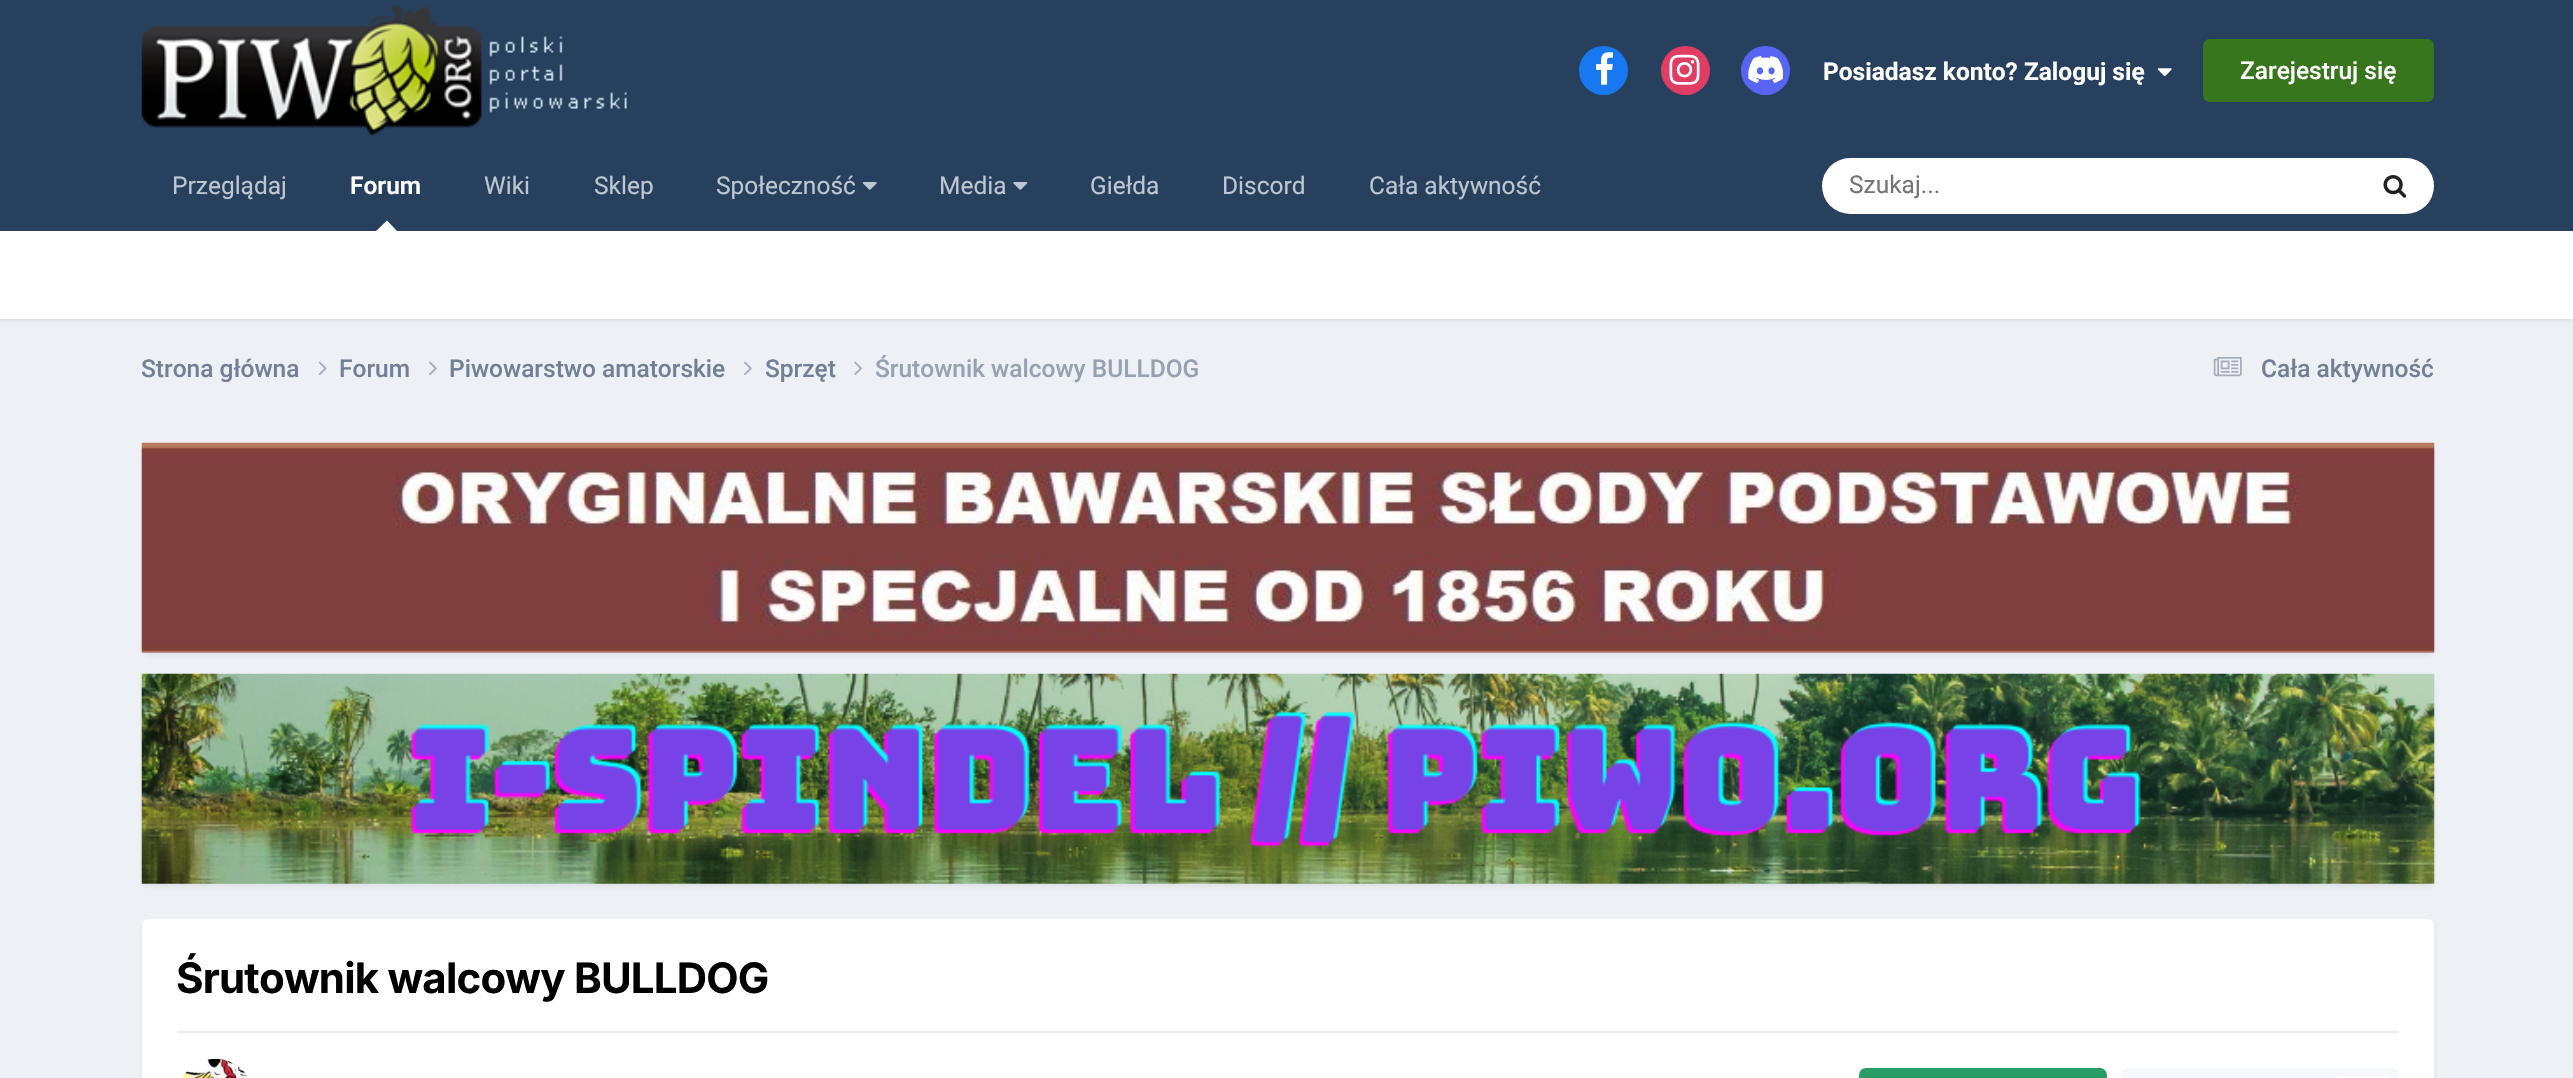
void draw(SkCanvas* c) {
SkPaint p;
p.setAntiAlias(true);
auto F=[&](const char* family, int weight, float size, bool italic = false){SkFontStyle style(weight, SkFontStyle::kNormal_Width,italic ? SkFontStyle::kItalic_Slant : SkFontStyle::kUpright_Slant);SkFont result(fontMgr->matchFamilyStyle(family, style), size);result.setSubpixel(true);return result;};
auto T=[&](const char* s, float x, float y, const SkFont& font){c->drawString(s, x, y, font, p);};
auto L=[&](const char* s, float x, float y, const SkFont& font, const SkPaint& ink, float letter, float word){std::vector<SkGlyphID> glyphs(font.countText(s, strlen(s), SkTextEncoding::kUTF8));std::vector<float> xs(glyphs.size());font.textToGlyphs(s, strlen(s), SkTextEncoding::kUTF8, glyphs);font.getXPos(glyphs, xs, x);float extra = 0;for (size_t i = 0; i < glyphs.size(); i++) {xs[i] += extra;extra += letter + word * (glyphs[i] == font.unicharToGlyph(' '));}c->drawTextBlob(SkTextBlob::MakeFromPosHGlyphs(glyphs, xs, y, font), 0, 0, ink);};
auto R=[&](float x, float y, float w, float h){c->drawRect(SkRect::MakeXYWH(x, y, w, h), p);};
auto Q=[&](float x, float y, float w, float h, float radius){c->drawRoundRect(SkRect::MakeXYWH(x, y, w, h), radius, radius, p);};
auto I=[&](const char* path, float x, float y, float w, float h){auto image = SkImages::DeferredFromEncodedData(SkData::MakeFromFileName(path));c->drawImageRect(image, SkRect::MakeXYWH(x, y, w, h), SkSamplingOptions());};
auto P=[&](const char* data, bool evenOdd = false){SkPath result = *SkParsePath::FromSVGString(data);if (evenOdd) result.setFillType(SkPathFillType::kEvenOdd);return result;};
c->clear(0xffedf0f4);
p.setColor(0xff27405e);
R(0,0,2573,231);
I("1.png",141,5,486,131);
p.setColor(0xff1778f2);
c->drawCircle(1603.5,70.5,24.5,p);
I("2.png",1596,52,17,33);
p.setColor(0xffe13d62);
c->drawCircle(1685.5,70.5,24.5,p);
I("3.png",1669,54,31,31);
p.setColor(0xff5865f2);
c->drawCircle(1765.5,70.5,24.5,p);
I("4.png",1748,56,35,27);
auto f1 = F("Roboto",700,24.5);
p.setColor(0xffffffff);
T("Posiadasz konto? Zaloguj się",1823,80,f1);
I("5.png",2157,68,15,9);
p.setColor(0xff38761d);
Q(2203,39,231,63,7);
auto f2 = F("Roboto",500,24.5);
p.setColor(0xffffffff);
T("Zarejestruj się",2240,79,f2);
auto f3 = F("Roboto",400,24.5);
p.setColor(0xffbec6cf);
T("Przeglądaj",172,194,f3);
auto f4 = F("Roboto",600,24.5);
p.setColor(0xffffffff);
T("Forum",350,194,f4);
p.setColor(0x1a000000);
p.setMaskFilter(SkMaskFilter::MakeBlur(kNormal_SkBlurStyle, 2));
c->drawRect(SkRect::MakeXYWH(0,233,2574,87),p);
p.setMaskFilter(nullptr);
p.setColor(0xffffffff);
c->drawPath(P("M397 231h-21l11-10.5z"),p);
p.setColor(0xffbec6cf);
T("Wiki",484,194,f3);
T("Sklep",594,194,f3);
T("Społeczność",716,194,f3);
I("6.png",862,182,15,8);
T("Media",939,194,f3);
I("7.png",1013,182,15,8);
T("Giełda",1090,194,f3);
T("Discord",1222,194,f3);
T("Cała aktywność",1369,194,f3);
p.setColor(0xffffffff);
Q(1822,158,612,56,28);
p.setColor(0xff757575);
T("Szukaj...",1849,193,f3);
I("8.png",2383,175,24,23);
p.setColor(0xffffffff);
R(0,231,2573,88);
p.setColor(0xff718096);
T("Strona główna",141,377,f2);
I("9.png",318,361,9,15);
T("Forum",339,377,f2);
I("10.png",429,361,8,14);
T("Piwowarstwo amatorskie",449,377,f2);
I("10.png",744,361,8,14);
T("Sprzęt",765,377,f2);
I("11.png",854,361,8,15);
p.setColor(0xff96a2b2);
T("Śrutownik walcowy BULLDOG",875,377,f2);
I("12.png",2213,357,29,20);
p.setColor(0xff718096);
T("Cała aktywność",2261,377,f2);
p.setColor(0x1a2d3748);
p.setMaskFilter(SkMaskFilter::MakeBlur(kNormal_SkBlurStyle, 3.5));
c->drawRoundRect(SkRect::MakeXYWH(144,448,2289,207),5,5,p);
p.setMaskFilter(nullptr);
I("13.png",141,442,2294,211);
p.setMaskFilter(SkMaskFilter::MakeBlur(kNormal_SkBlurStyle, 3.5));
c->drawRoundRect(SkRect::MakeXYWH(144,679,2289,207),5,5,p);
p.setMaskFilter(nullptr);
I("14.png",141,673,2294,211);
p.setMaskFilter(SkMaskFilter::MakeBlur(kNormal_SkBlurStyle, 3.5));
c->drawRoundRect(SkRect::MakeXYWH(144,924,2289,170),5,5,p);
p.setMaskFilter(nullptr);
p.setColor(0xffffffff);
Q(142,919,2292,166,7);
auto f5 = F("Inter",700,42);
p.setColor(0xff000000);
L("Śrutownik walcowy BULLDOG",176,993,f5,p,-.8,0);
p.setColor(0xffebebeb);
R(177,1031,2222,2);
I("15.png",182,1058,66,20);
p.setColor(0xff2a9c66);
Q(1859,1068,248,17,7);
p.setColor(0xfff4f9fd);
Q(2121,1068,278,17,7);
p.setColor(0xffffffff);
Q(2335,1076,56,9,7);
}
